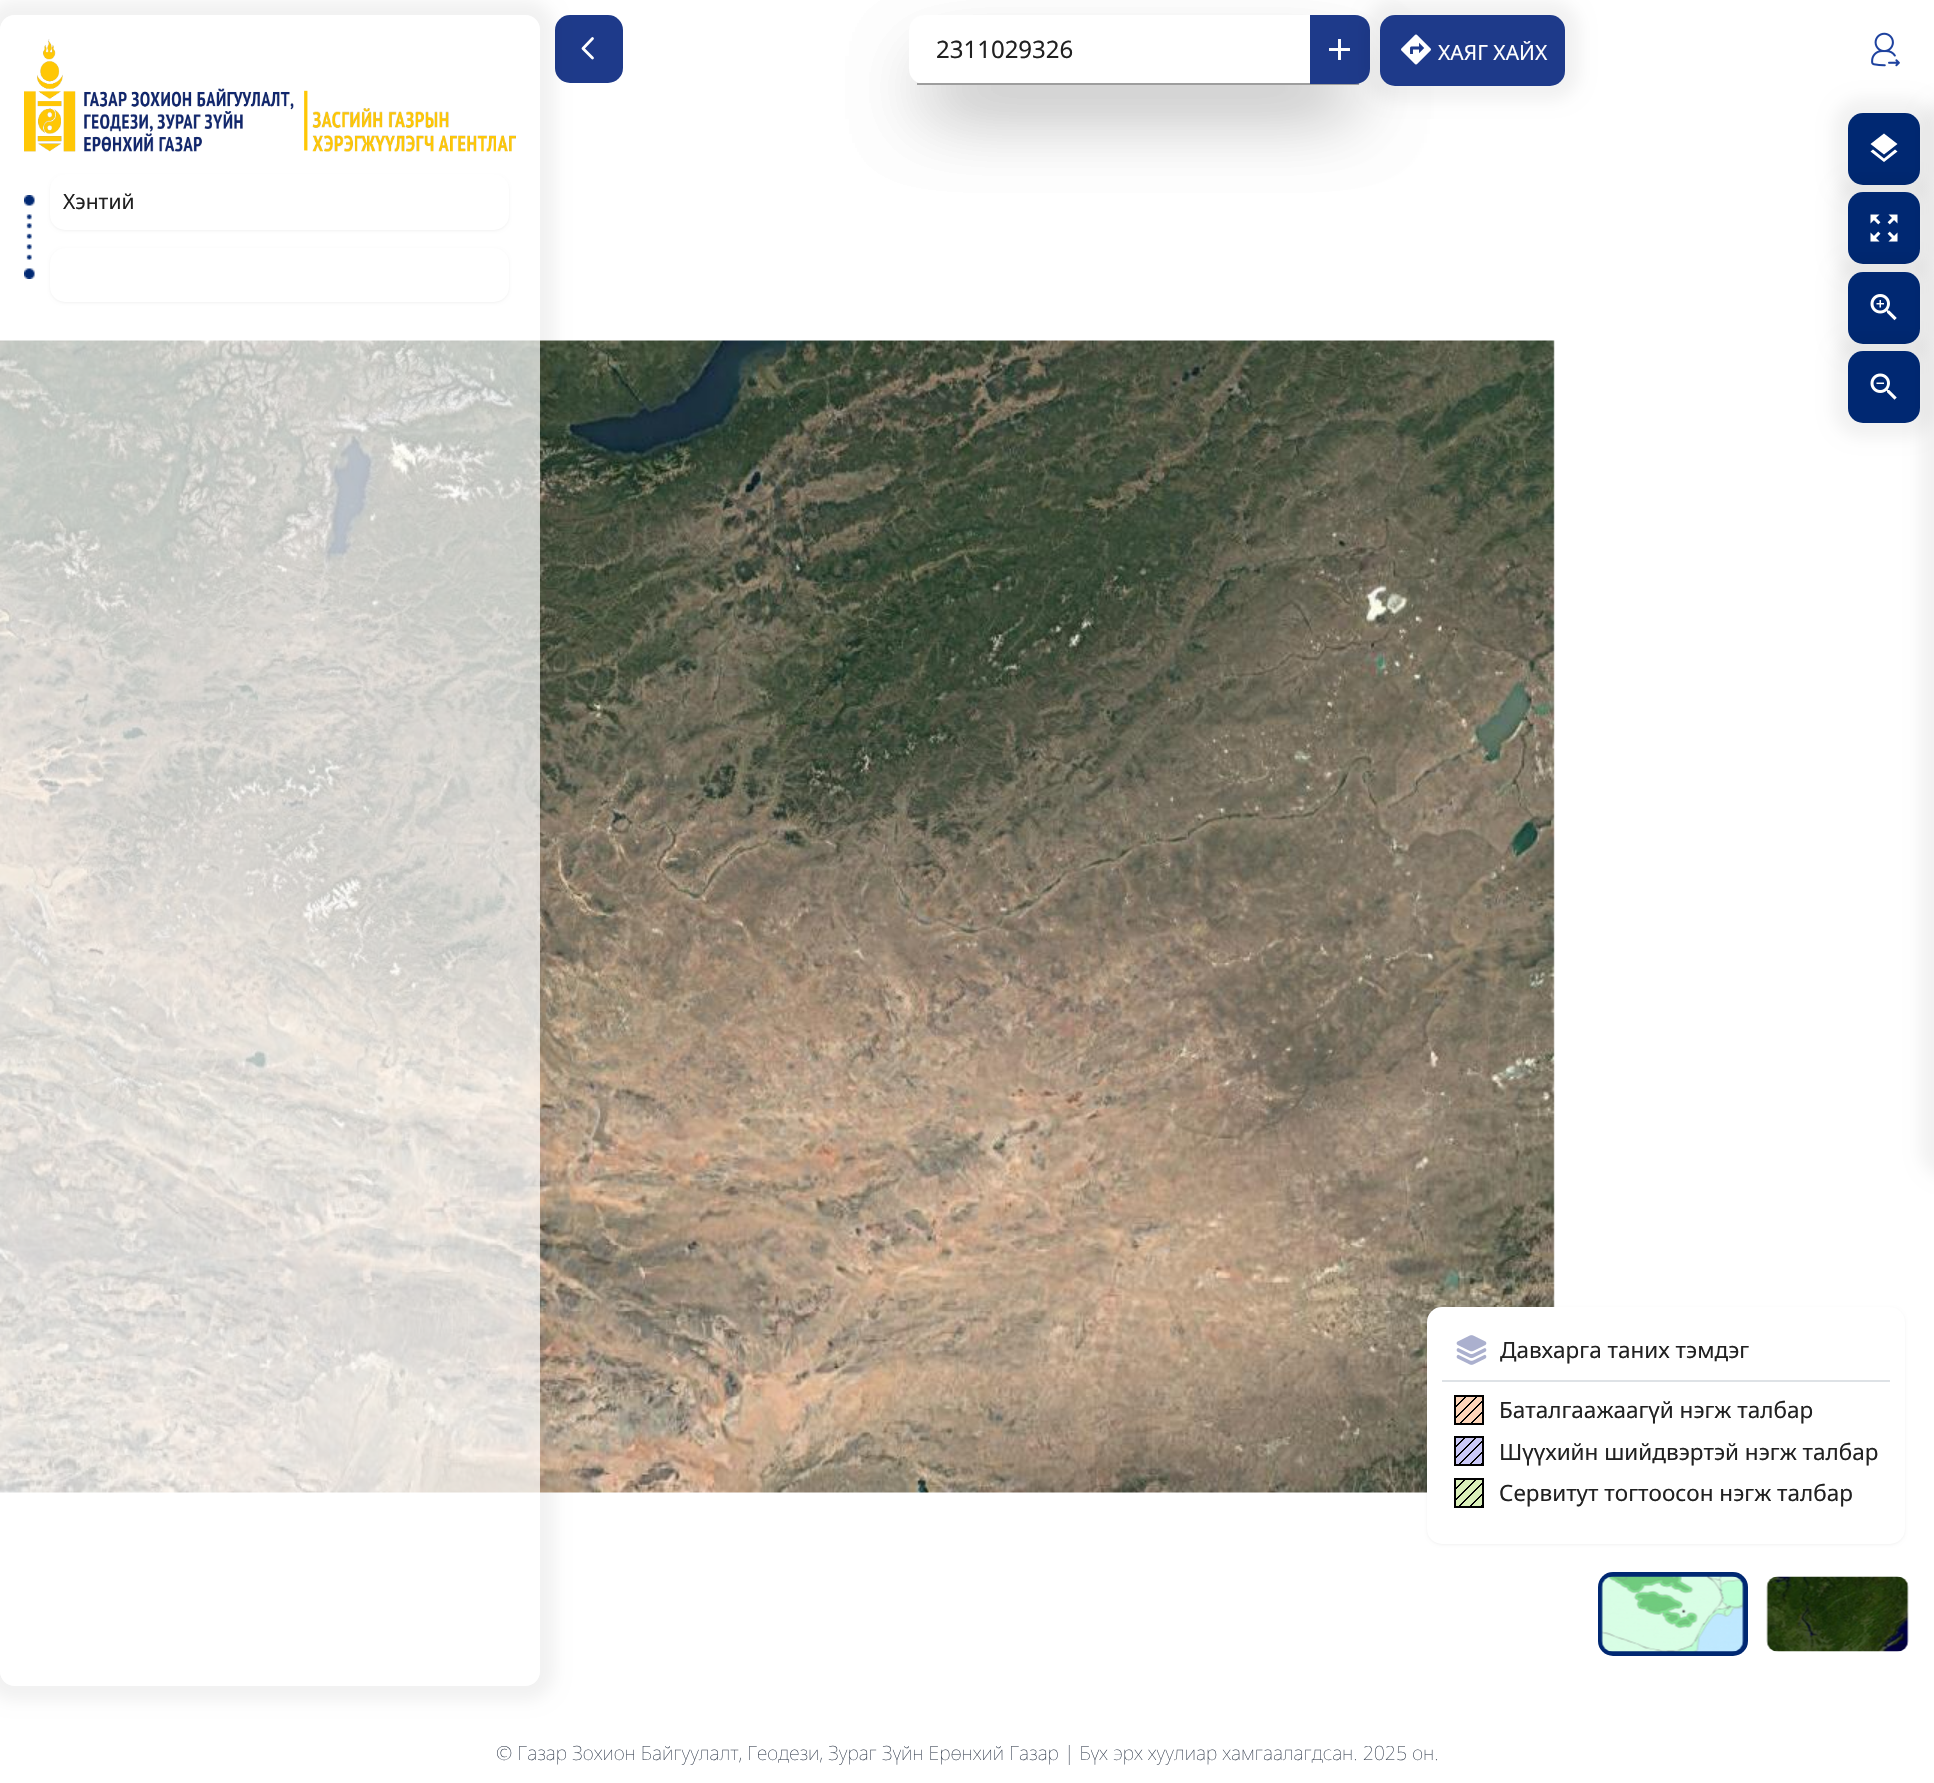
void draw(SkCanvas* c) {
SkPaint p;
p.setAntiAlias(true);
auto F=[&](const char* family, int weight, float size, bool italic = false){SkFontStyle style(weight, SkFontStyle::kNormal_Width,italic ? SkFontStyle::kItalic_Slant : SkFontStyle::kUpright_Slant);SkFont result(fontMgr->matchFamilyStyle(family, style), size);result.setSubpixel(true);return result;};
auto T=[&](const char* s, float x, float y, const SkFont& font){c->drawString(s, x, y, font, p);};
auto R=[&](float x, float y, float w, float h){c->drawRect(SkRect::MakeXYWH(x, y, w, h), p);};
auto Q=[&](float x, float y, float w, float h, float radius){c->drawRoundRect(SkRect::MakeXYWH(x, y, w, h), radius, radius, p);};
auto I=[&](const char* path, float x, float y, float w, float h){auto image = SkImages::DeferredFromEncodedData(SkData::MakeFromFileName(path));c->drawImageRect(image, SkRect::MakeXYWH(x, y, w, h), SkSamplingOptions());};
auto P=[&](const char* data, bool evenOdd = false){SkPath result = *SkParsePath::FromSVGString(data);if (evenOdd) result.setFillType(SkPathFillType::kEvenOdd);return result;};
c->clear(0xffffffff);
p.setColor(0xff1e3a8a);
Q(555,15,68,68,15);
p.setStroke(true);
p.setStrokeWidth(2.8);
p.setStrokeCap(SkPaint::kRound_Cap);
p.setStrokeJoin(SkPaint::kRound_Join);
p.setColor(0xffffffff);
c->drawPath(P("M592.5 58l-9.5-9.5l9.5-10"),p);
p.setStroke(false);
p.setColor(0x40000000);
p.setMaskFilter(SkMaskFilter::MakeBlur(kNormal_SkBlurStyle, 37.5));
c->drawRect(SkRect::MakeXYWH(927,71,425,33),p);
p.setMaskFilter(nullptr);
p.setColor(0xffffffff);
Q(909,15,461,69,15);
c->save();
c->clipPath(P("M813 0h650v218h-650zm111 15h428c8.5 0 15 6.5 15 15v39c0 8.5-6.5 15-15 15h-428c-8.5 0-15-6.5-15-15v-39c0-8.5 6.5-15 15-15z",true),true);
p.setColor(0x40000000);
p.setMaskFilter(SkMaskFilter::MakeBlur(kNormal_SkBlurStyle, 37.5));
c->drawRect(SkRect::MakeXYWH(927,71,422,33),p);
p.setMaskFilter(nullptr);
c->restore();
p.setColor(0xff9e9e9e);
R(917,83,442,2);
auto f1 = F("Noto Sans",400,24);
p.setColor(0xff212121);
T("2311029326",936,58,f1);
p.setColor(0xff1e3a8a);
c->drawPath(P("M1310 15h45c8.5 0 15 6.5 15 15v39c0 8.5-6.5 15-15 15h-45z"),p);
I("1.png",1329,39,21,21);
p.setColor(0x0d000000);
p.setMaskFilter(SkMaskFilter::MakeBlur(kNormal_SkBlurStyle, 7.5));
c->drawRoundRect(SkRect::MakeXYWH(1365,0,215,101),30,30,p);
p.setMaskFilter(nullptr);
p.setColor(0xff1e3a8a);
Q(1380,15,185,71,15);
I("2.png",1401,34,30,31);
auto f2 = F("Noto Sans",400,21);
p.setColor(0xffffffff);
T("ХАЯГ ХАЙХ",1438,60,f2);
I("3.png",1871,32,29,35);
I("9.png",0,340,1555,1153);
c->save();
c->clipPath(P("M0 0h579v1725h-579zm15 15h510c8.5 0 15 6.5 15 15v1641c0 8.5-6.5 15-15 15h-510c-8.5 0-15-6.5-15-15v-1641c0-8.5 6.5-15 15-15z",true),true);
p.setColor(0x0d000000);
p.setMaskFilter(SkMaskFilter::MakeBlur(kNormal_SkBlurStyle, 7.5));
c->drawRoundRect(SkRect::MakeXYWH(-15,0,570,1701),30,30,p);
p.setMaskFilter(nullptr);
c->restore();
p.setColor(0xb3ffffff);
Q(0,15,540,1671,15);
I("4.png",24,39,492,113);
I("5.png",24,195,11,84);
p.setColor(0x0d000000);
p.setMaskFilter(SkMaskFilter::MakeBlur(kNormal_SkBlurStyle, 1.5));
c->drawRoundRect(SkRect::MakeXYWH(50,176,459,55),15,15,p);
p.setMaskFilter(nullptr);
p.setColor(0xffffffff);
Q(50,174,459,56,15);
p.setColor(0xff212121);
T("Хэнтий",63,209,f2);
p.setColor(0x0d000000);
p.setMaskFilter(SkMaskFilter::MakeBlur(kNormal_SkBlurStyle, 1.5));
c->drawRoundRect(SkRect::MakeXYWH(50,249,459,54),15,15,p);
p.setMaskFilter(nullptr);
p.setColor(0xffffffff);
Q(50,248,459,54,15);
p.setColor(0x0d000000);
p.setMaskFilter(SkMaskFilter::MakeBlur(kNormal_SkBlurStyle, 7.5));
c->drawRoundRect(SkRect::MakeXYWH(1833,98,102,102),30,30,p);
p.setMaskFilter(nullptr);
p.setColor(0xff002872);
Q(1848,113,72,72,15);
p.setColor(0x0d000000);
p.setMaskFilter(SkMaskFilter::MakeBlur(kNormal_SkBlurStyle, 7.5));
c->drawRoundRect(SkRect::MakeXYWH(1833,177,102,102),30,30,p);
p.setMaskFilter(nullptr);
p.setColor(0xffffffff);
c->drawPath(P("M1884 154.5l-13.5-10.5l13.5-10.5l13.5 10.5zm0 4l11-9l2.5 2l-13.5 10.5l-13.5-10.5l2.5-2zm18 8z"),p);
p.setColor(0xff002872);
Q(1848,192,72,72,15);
p.setColor(0x0d000000);
p.setMaskFilter(SkMaskFilter::MakeBlur(kNormal_SkBlurStyle, 7.5));
c->drawRoundRect(SkRect::MakeXYWH(1833,257,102,102),30,30,p);
p.setMaskFilter(nullptr);
I("6.png",1870,214,28,28);
p.setColor(0xff002872);
Q(1848,272,72,72,15);
p.setColor(0x0d000000);
p.setMaskFilter(SkMaskFilter::MakeBlur(kNormal_SkBlurStyle, 7.5));
c->drawRoundRect(SkRect::MakeXYWH(1833,336,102,102),30,30,p);
p.setMaskFilter(nullptr);
I("7.png",1870,294,27,27);
p.setColor(0xff002872);
Q(1848,351,72,72,15);
I("8.png",1870,373,27,27);
p.setColor(0x0d000000);
p.setMaskFilter(SkMaskFilter::MakeBlur(kNormal_SkBlurStyle, 7.5));
c->drawRoundRect(SkRect::MakeXYWH(1920,98,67,1081),30,30,p);
p.setMaskFilter(nullptr);
p.setMaskFilter(SkMaskFilter::MakeBlur(kNormal_SkBlurStyle, 1.5));
c->drawRoundRect(SkRect::MakeXYWH(1427,1308,478,237),15,15,p);
p.setMaskFilter(nullptr);
p.setColor(0xffffffff);
Q(1427,1307,478,237,15);
I("10.png",1456,1335,31,30);
auto f3 = F("Noto Sans",400,22.5);
p.setColor(0xff212121);
T("Давхарга таних тэмдэг",1500,1358,f3);
p.setColor(0xffdee2e6);
R(1442,1380,448,2);
{
const SkColor colors[] = {0xff000000,0xff000000,0xfffdd5b9,0xfffdd5b9,0xff000000,0xff000000,0xfffdd5b9,0xfffdd5b9,0xff000000,0xff000000,0xfffdd5b9,0xfffdd5b9,0xff000000,0xff000000,0xfffdd5b9,0xfffdd5b9,0xff000000,0xff000000,0xfffdd5b9,0xfffdd5b9,0xff000000,0xff000000,0xfffdd5b9,0xfffdd5b9};
const float stops[] = {0,.03,.03,.17,.17,.2,.2,.33,.33,.37,.37,.5,.5,.53,.53,.67,.67,.7,.7,.83,.83,.87,.87,1};
const SkPoint ends[] = {{1482,1424}, {1450,1392}};
p.setShader(SkGradientShader::MakeLinear(ends, colors, stops, 24, SkTileMode::kClamp));
p.setAlpha(255);
}
R(1456,1397,26,26);
p.setStroke(true);
p.setStrokeWidth(2);
p.setStrokeCap(SkPaint::kButt_Cap);
p.setStrokeJoin(SkPaint::kMiter_Join);
p.setShader(nullptr);
p.setColor(0xff000000);
c->drawRect(SkRect::MakeXYWH(1455,1396,28,28),p);
p.setStroke(false);
p.setColor(0xff212121);
T("Баталгаажаагүй нэгж талбар",1499,1418,f3);
{
const SkColor colors[] = {0xff000000,0xff000000,0xffcac8f7,0xffcac8f7,0xff000000,0xff000000,0xffcac8f7,0xffcac8f7,0xff000000,0xff000000,0xffcac8f7,0xffcac8f7,0xff000000,0xff000000,0xffcac8f7,0xffcac8f7,0xff000000,0xff000000,0xffcac8f7,0xffcac8f7,0xff000000,0xff000000,0xffcac8f7,0xffcac8f7};
const float stops[] = {0,.03,.03,.17,.17,.2,.2,.33,.33,.37,.37,.5,.5,.53,.53,.67,.67,.7,.7,.83,.83,.87,.87,1};
const SkPoint ends[] = {{1482,1464}, {1450,1432}};
p.setShader(SkGradientShader::MakeLinear(ends, colors, stops, 24, SkTileMode::kClamp));
p.setAlpha(255);
}
R(1456,1438,26,26);
p.setStroke(true);
p.setShader(nullptr);
p.setColor(0xff000000);
c->drawRect(SkRect::MakeXYWH(1455,1437,28,28),p);
p.setStroke(false);
p.setColor(0xff212121);
T("Шүүхийн шийдвэртэй нэгж талбар",1499,1460,f3);
{
const SkColor colors[] = {0xff000000,0xff000000,0xffdaf0b9,0xffdaf0b9,0xff000000,0xff000000,0xffdaf0b9,0xffdaf0b9,0xff000000,0xff000000,0xffdaf0b9,0xffdaf0b9,0xff000000,0xff000000,0xffdaf0b9,0xffdaf0b9,0xff000000,0xff000000,0xffdaf0b9,0xffdaf0b9,0xff000000,0xff000000,0xffdaf0b9,0xffdaf0b9};
const float stops[] = {0,.03,.03,.17,.17,.2,.2,.33,.33,.37,.37,.5,.5,.53,.53,.67,.67,.7,.7,.83,.83,.87,.87,1};
const SkPoint ends[] = {{1482,1506}, {1450,1474}};
p.setShader(SkGradientShader::MakeLinear(ends, colors, stops, 24, SkTileMode::kClamp));
p.setAlpha(255);
}
R(1456,1480,26,26);
p.setStroke(true);
p.setShader(nullptr);
p.setColor(0xff000000);
c->drawRect(SkRect::MakeXYWH(1455,1479,28,28),p);
p.setStroke(false);
p.setColor(0xff212121);
T("Сервитут тогтоосон нэгж талбар",1499,1501,f3);
p.setColor(0xff002872);
Q(1598,1572,150,84,15);
I("11.png",1601,1576,143,76);
I("12.png",1766,1576,143,76);
auto f4 = F("Noto Sans",100,19.5);
p.setColor(0xff374151);
T("© Газар Зохион Байгуулалт, Геодези, Зураг Зүйн Ерөнхий Газар | Бүх эрх хуулиар хамгаалагдсан. 2025 он.",496,1760,f4);
}
